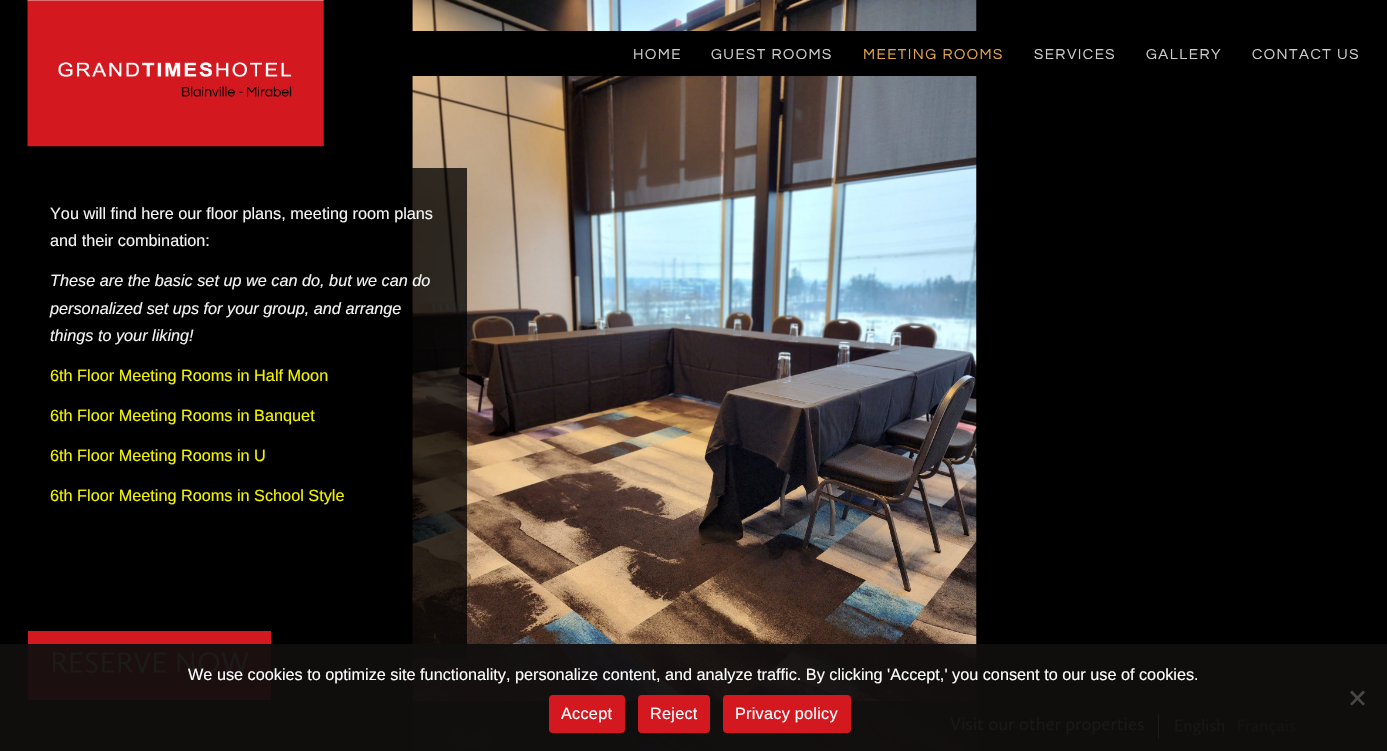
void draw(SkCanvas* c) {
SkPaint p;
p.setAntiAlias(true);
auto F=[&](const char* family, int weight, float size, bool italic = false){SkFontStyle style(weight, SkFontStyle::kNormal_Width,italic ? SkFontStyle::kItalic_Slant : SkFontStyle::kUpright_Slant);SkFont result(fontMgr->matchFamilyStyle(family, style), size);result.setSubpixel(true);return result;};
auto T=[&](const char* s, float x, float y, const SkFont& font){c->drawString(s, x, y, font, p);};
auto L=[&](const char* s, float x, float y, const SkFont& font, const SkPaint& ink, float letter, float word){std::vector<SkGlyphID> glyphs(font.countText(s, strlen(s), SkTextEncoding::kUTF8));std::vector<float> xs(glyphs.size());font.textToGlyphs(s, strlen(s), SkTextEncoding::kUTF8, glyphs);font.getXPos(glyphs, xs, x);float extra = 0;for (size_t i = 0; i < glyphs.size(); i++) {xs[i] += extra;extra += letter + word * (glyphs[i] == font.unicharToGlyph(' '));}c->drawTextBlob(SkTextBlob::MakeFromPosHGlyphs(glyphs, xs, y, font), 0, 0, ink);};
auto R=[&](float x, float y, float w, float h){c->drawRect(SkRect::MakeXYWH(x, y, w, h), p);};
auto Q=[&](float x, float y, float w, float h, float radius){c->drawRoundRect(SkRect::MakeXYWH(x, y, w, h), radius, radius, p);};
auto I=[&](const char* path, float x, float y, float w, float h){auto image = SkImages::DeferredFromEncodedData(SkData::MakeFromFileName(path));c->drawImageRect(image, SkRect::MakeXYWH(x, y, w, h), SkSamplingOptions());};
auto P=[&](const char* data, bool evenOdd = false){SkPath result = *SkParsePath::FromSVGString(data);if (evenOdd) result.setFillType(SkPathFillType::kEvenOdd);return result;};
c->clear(0xff000000);
I("1.png",412,0,565,751);
I("2.png",27,0,297,147);
p.setColor(0xff000000);
R(412,31,565,45);
auto f1 = F("Questrial",400,15);
p.setColor(0xffcecccc);
L("HOME",633,59,f1,p,1.5,0);
L("GUEST ROOMS",711,59,f1,p,1.5,0);
p.setColor(0xffe4a44a);
L("MEETING ROOMS",863,59,f1,p,1.5,0);
p.setColor(0xffcecccc);
L("SERVICES",1034,59,f1,p,1.5,0);
L("GALLERY",1146,59,f1,p,1.5,0);
L("CONTACT US",1252,59,f1,p,1.5,0);
p.setColor(0xc2000000);
R(412,168,55,491);
auto f2 = F("Liberation Sans",400,16.25);
p.setColor(0xfff4f4f4);
T("You will find here our floor plans, meeting room plans",50,219,f2);
T("and their combination:",50,246,f2);
auto f3 = F("Liberation Sans",400,16.25,true);
T("These are the basic set up we can do, but we can do",50,286,f3);
T("personalized set ups for your group, and arrange",50,314,f3);
T("things to your liking!",50,341,f3);
p.setColor(0xfff3f300);
T("6th Floor Meeting Rooms in Half Moon",50,381,f2);
T("6th Floor Meeting Rooms in Banquet",50,421,f2);
T("6th Floor Meeting Rooms in U",50,461,f2);
T("6th Floor Meeting Rooms in School Style",50,501,f2);
p.setColor(0xffd21920);
R(28,631,243,69);
I("3.png",52,652,197,21);
p.setColor(0xcc000000);
R(412,701,565,50);
p.setColor(0xffffffff);
R(1158,714,1,25);
I("4.png",950,716,194,19);
I("5.png",1175,718,50,18);
I("6.png",1238,719,57,17);
p.setColor(0xf2110e0e);
R(0,644,1387,107);
p.setColor(0xffffffff);
T("We use cookies to optimize site functionality, personalize content, and analyze traffic. By clicking 'Accept,' you consent to our use of cookies.",188,680,f2);
p.setColor(0xff484747);
c->drawPath(P("M1363 690.5l2 2l-13 13l-2-1.5z"),p);
c->drawPath(P("M1350 692.5l2-2l13 13.5l-2 1.5z"),p);
p.setColor(0xffd31820);
Q(549,695,76,38,4);
p.setColor(0xffffffff);
L("Accept",561,719,f2,p,.25,0);
p.setColor(0xffd31820);
Q(638,695,72,38,4);
p.setColor(0xffffffff);
L("Reject",650,719,f2,p,.25,0);
p.setColor(0xffd31820);
Q(723,695,128,38,4);
p.setColor(0xffffffff);
L("Privacy policy",735,719,f2,p,.25,0);
}
